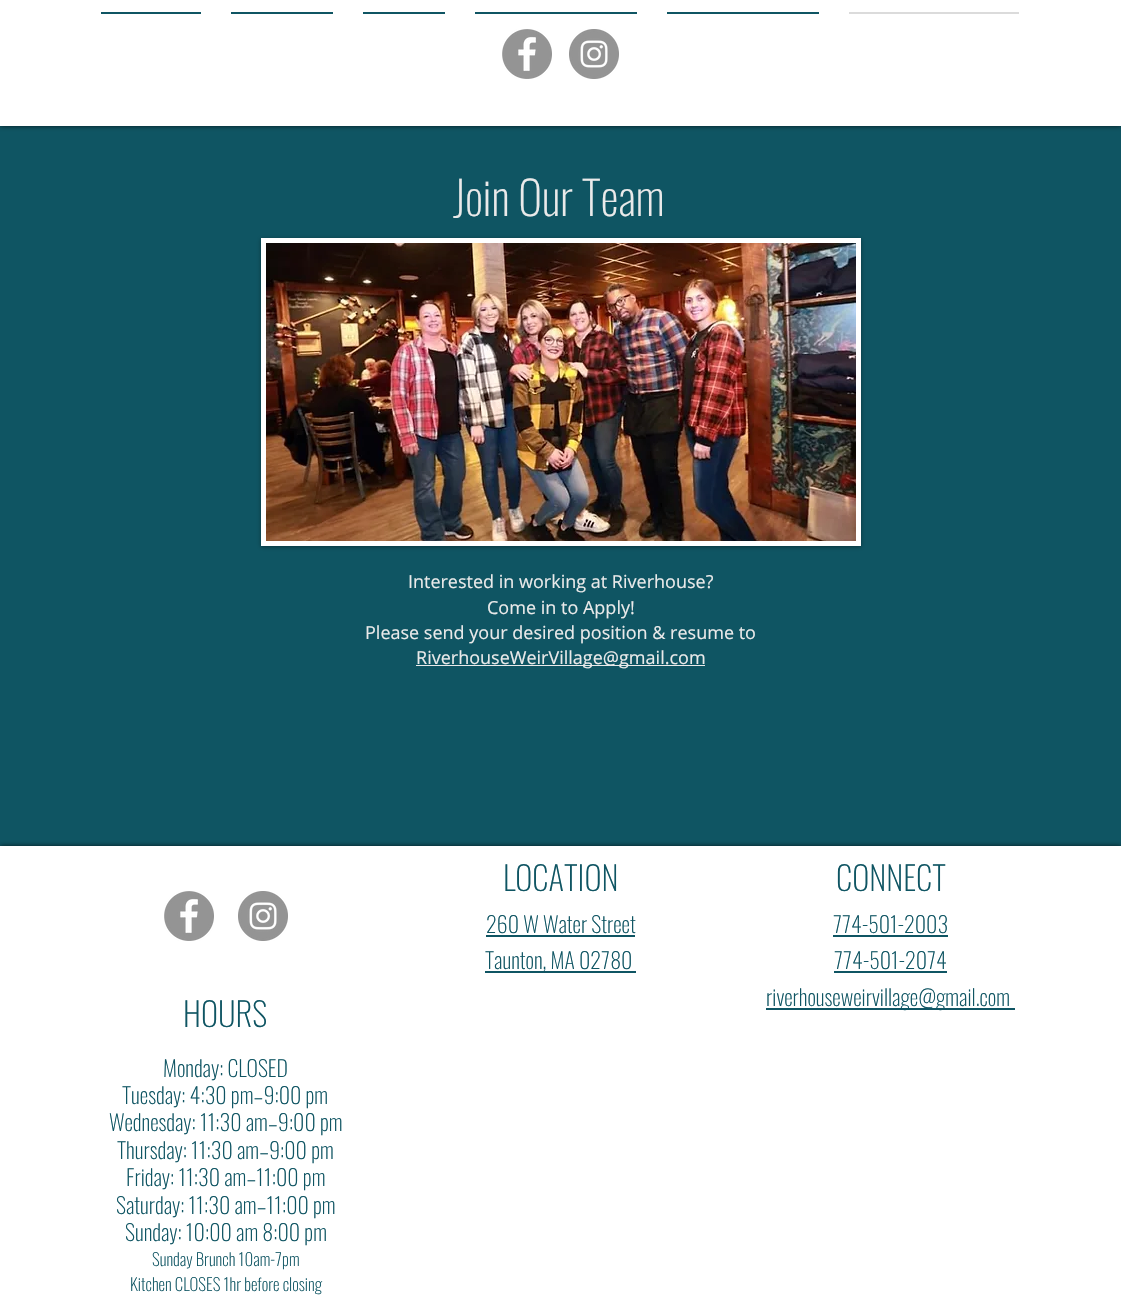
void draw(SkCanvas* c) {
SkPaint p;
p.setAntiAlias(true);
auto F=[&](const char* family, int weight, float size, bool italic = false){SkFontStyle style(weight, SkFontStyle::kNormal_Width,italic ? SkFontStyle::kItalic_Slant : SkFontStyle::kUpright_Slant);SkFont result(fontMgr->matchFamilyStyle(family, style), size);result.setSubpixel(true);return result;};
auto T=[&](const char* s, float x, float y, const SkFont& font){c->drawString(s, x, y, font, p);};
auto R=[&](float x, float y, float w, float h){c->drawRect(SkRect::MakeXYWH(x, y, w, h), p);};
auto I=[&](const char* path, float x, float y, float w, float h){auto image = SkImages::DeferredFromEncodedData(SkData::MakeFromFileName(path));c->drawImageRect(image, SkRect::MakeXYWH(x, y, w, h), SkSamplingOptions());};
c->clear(0xff0f5563);
p.setColor(0xb3000000);
p.setMaskFilter(SkMaskFilter::MakeBlur(kNormal_SkBlurStyle, 2.5));
c->drawRect(SkRect::MakeXYWH(0,-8,1121,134),p);
p.setMaskFilter(nullptr);
p.setColor(0xffffffff);
R(0,0,1121,126);
p.setColor(0xff0f5563);
R(101,12,100,2);
R(231,12,102,2);
R(363,12,82,2);
R(475,12,162,2);
R(667,12,152,2);
p.setColor(0xffdbdbdb);
R(849,12,170,2);
I("1.png",502,29,50,50);
I("2.png",569,29,50,50);
auto f1 = F("Oswald",200,46);
p.setColor(0xffeaeaea);
T("Join Our Team",453,216,f1);
p.setColor(0x66000000);
p.setMaskFilter(SkMaskFilter::MakeBlur(kNormal_SkBlurStyle, 2));
c->drawRect(SkRect::MakeXYWH(261,239,600,308),p);
p.setMaskFilter(nullptr);
p.setColor(0xffffffff);
R(261,238,600,308);
I("3.png",266,243,590,298);
auto f2 = F("Open Sans",400,18);
p.setColor(0xffeaeaea);
T("Interested in working at Riverhouse?",408,588,f2);
T("Come in to Apply!",487,614,f2);
T("Please send your desired position & resume to",365,639,f2);
R(416,665,289,1);
T("RiverhouseWeirVillage@gmail.com",416,664,f2);
p.setColor(0xb3000000);
p.setMaskFilter(SkMaskFilter::MakeBlur(kNormal_SkBlurStyle, 2.5));
c->drawRect(SkRect::MakeXYWH(0,846,1121,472),p);
p.setMaskFilter(nullptr);
p.setColor(0xffffffff);
R(0,846,1121,464);
auto f3 = F("Oswald",200,33);
p.setColor(0xff0f5563);
T("LOCATION",503,891,f3);
auto f4 = F("Oswald",200,22);
T("260 W Water Street",486,933,f4);
R(486,935,149,2);
R(485,971,151,2);
T("Taunton, MA 02780",485,969,f4);
T("CONNECT",836,891,f3);
T("774-501-2003",833,933,f4);
R(833,935,115,2);
T("774-501-2074",834,969,f4);
R(834,971,113,2);
R(766,1008,249,2);
T("riverhouseweirvillage@gmail.com",766,1006,f4);
I("1.png",164,891,50,50);
I("2.png",238,891,50,50);
T("HOURS",183,1027,f3);
T("Monday: CLOSED",163,1077,f4);
T("Tuesday: 4:30 pm–9:00 pm",122,1104,f4);
T("Wednesday: 11:30 am–9:00 pm",109,1131,f4);
T("Thursday: 11:30 am–9:00 pm",117,1159,f4);
T("Friday: 11:30 am–11:00 pm",126,1186,f4);
T("Saturday: 11:30 am–11:00 pm",116,1214,f4);
T("Sunday: 10:00 am 8:00 pm",125,1241,f4);
auto f5 = F("Oswald",200,17);
T("Sunday Brunch 10am-7pm",152,1266,f5);
T("Kitchen CLOSES 1hr before closing",130,1291,f5);
}
